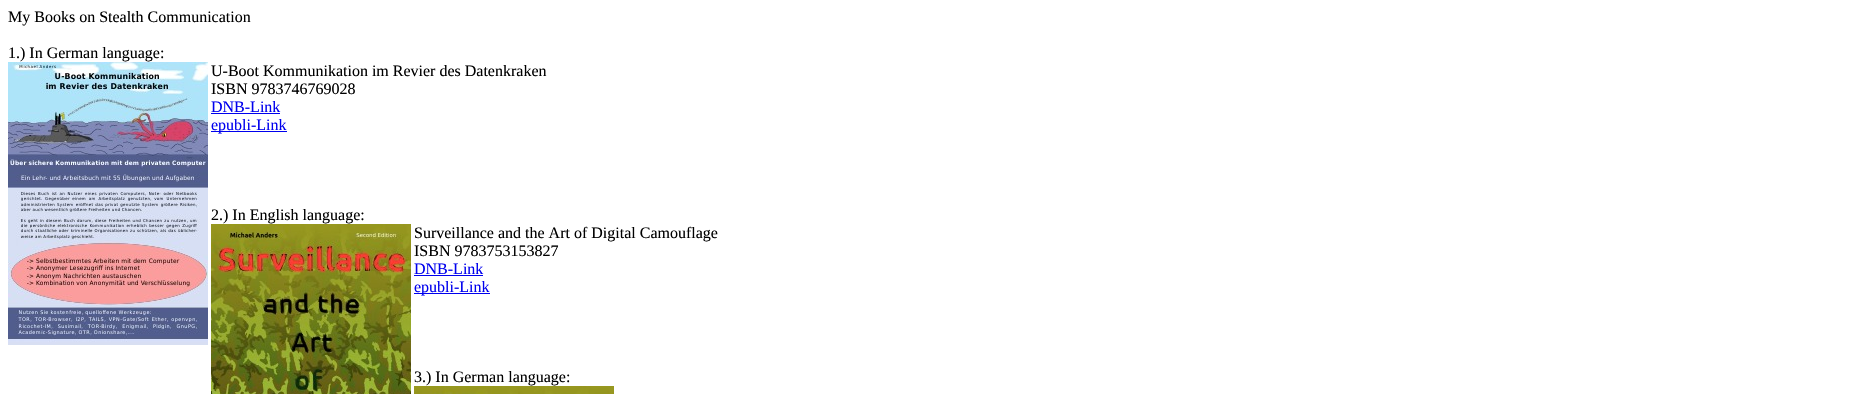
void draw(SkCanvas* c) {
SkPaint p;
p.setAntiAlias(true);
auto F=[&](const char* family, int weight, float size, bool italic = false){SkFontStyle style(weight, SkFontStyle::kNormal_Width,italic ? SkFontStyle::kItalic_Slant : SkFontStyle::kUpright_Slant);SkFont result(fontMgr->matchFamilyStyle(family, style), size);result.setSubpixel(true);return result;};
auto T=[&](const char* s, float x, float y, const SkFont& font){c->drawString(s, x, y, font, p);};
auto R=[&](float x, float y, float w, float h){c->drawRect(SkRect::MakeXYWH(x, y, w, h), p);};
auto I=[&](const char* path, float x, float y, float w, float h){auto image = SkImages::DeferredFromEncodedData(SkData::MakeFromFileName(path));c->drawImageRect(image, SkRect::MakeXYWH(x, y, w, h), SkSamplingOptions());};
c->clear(0xffffffff);
auto f1 = F("Liberation Serif",400,16);
p.setColor(0xff000000);
T("My Books on Stealth Communication",8,22,f1);
T("1.) In German language:",8,58,f1);
I("1.png",8,62,200,283);
T("U-Boot Kommunikation im Revier des Datenkraken",211,76,f1);
T("ISBN 9783746769028",211,94,f1);
p.setColor(0xff0000ee);
T("DNB-Link",211,112,f1);
R(211,113,69,1);
R(211,131,76,1);
T("epubli-Link",211,130,f1);
p.setColor(0xff000000);
T("2.) In English language:",211,220,f1);
I("2.png",211,224,200,170);
T("Surveillance and the Art of Digital Camouflage",414,238,f1);
T("ISBN 9783753153827",414,256,f1);
p.setColor(0xff0000ee);
T("DNB-Link",414,274,f1);
R(414,275,69,1);
R(414,293,76,1);
T("epubli-Link",414,292,f1);
p.setColor(0xff000000);
T("3.) In German language:",414,382,f1);
I("3.png",414,386,200,8);
}
